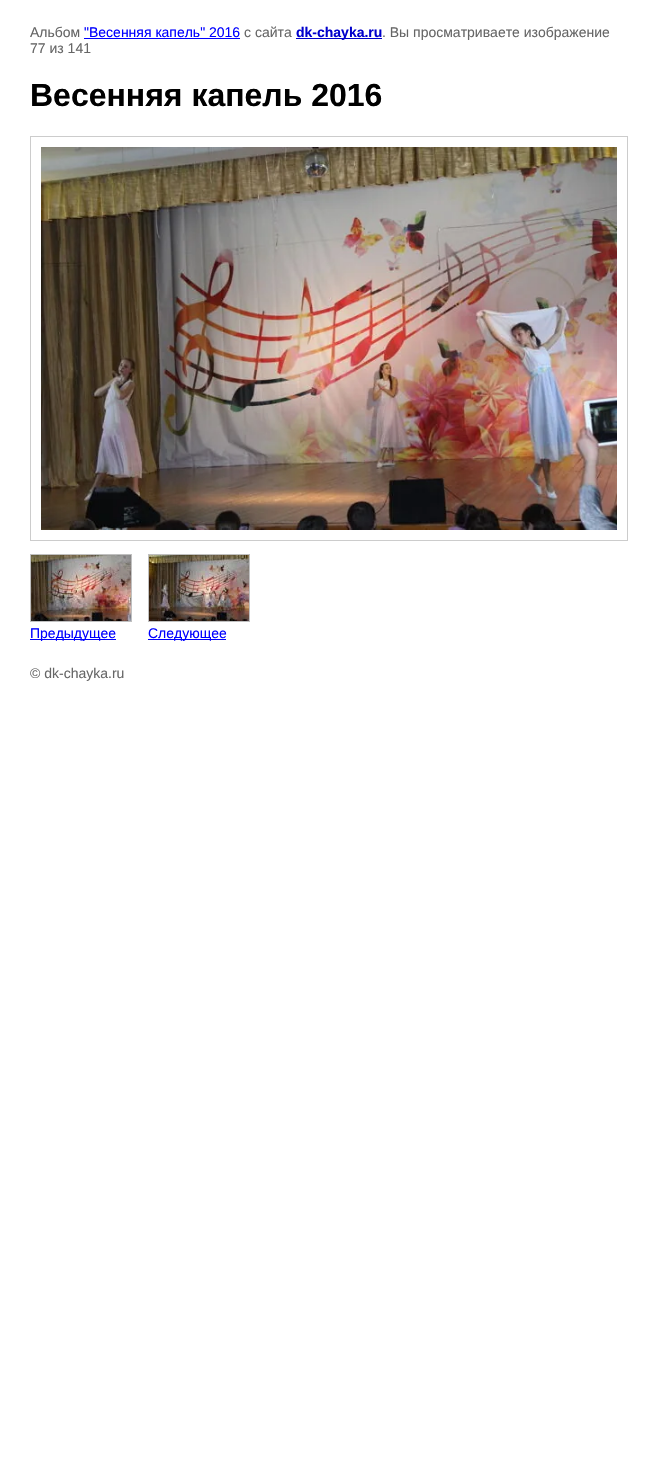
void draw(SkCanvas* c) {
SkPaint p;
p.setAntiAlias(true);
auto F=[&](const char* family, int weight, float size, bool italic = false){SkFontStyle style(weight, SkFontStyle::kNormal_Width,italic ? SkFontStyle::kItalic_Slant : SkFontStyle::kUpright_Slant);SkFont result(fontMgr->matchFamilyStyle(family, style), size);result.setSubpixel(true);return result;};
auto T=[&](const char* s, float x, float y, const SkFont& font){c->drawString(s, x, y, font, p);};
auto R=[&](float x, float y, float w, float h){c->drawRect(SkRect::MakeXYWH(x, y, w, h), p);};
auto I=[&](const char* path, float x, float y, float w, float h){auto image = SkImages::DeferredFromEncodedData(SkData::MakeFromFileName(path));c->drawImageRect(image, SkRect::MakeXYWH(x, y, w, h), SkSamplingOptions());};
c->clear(0xffffffff);
auto f1 = F("Liberation Sans",400,14);
p.setColor(0xff666666);
T("Альбом",30,37,f1);
p.setColor(0xff0000ff);
T("\"Весенняя капель\" 2016",84,37,f1);
R(84,38,156,1);
p.setColor(0xff666666);
T("с сайта",244,37,f1);
p.setColor(0xff0000cc);
R(296,38,86,1);
auto f2 = F("Liberation Sans",700,14);
T("dk-chayka.ru",296,37,f2);
p.setColor(0xff666666);
T(". Вы просматриваете изображение",382,37,f1);
T("77 из 141",30,53,f1);
auto f3 = F("Liberation Sans",700,32);
p.setColor(0xff000000);
T("Весенняя капель 2016",30,106,f3);
p.setStroke(true);
p.setStrokeWidth(1);
p.setColor(0xffcccccc);
c->drawRect(SkRect::MakeXYWH(30.5,136.5,597,404),p);
I("1.png",41,147,576,383);
p.setColor(0xffc0c0c0);
c->drawRect(SkRect::MakeXYWH(30.5,554.5,101,67),p);
I("2.png",31,555,100,66);
p.setStroke(false);
p.setColor(0xff0000ff);
R(30,639,86,1);
T("Предыдущее",30,638,f1);
p.setStroke(true);
p.setColor(0xffc0c0c0);
c->drawRect(SkRect::MakeXYWH(148.5,554.5,101,67),p);
I("3.png",149,555,100,66);
p.setStroke(false);
p.setColor(0xff0000ff);
R(148,639,78,1);
T("Следующее",148,638,f1);
p.setColor(0xff666666);
T("© dk-chayka.ru",30,678,f1);
}
